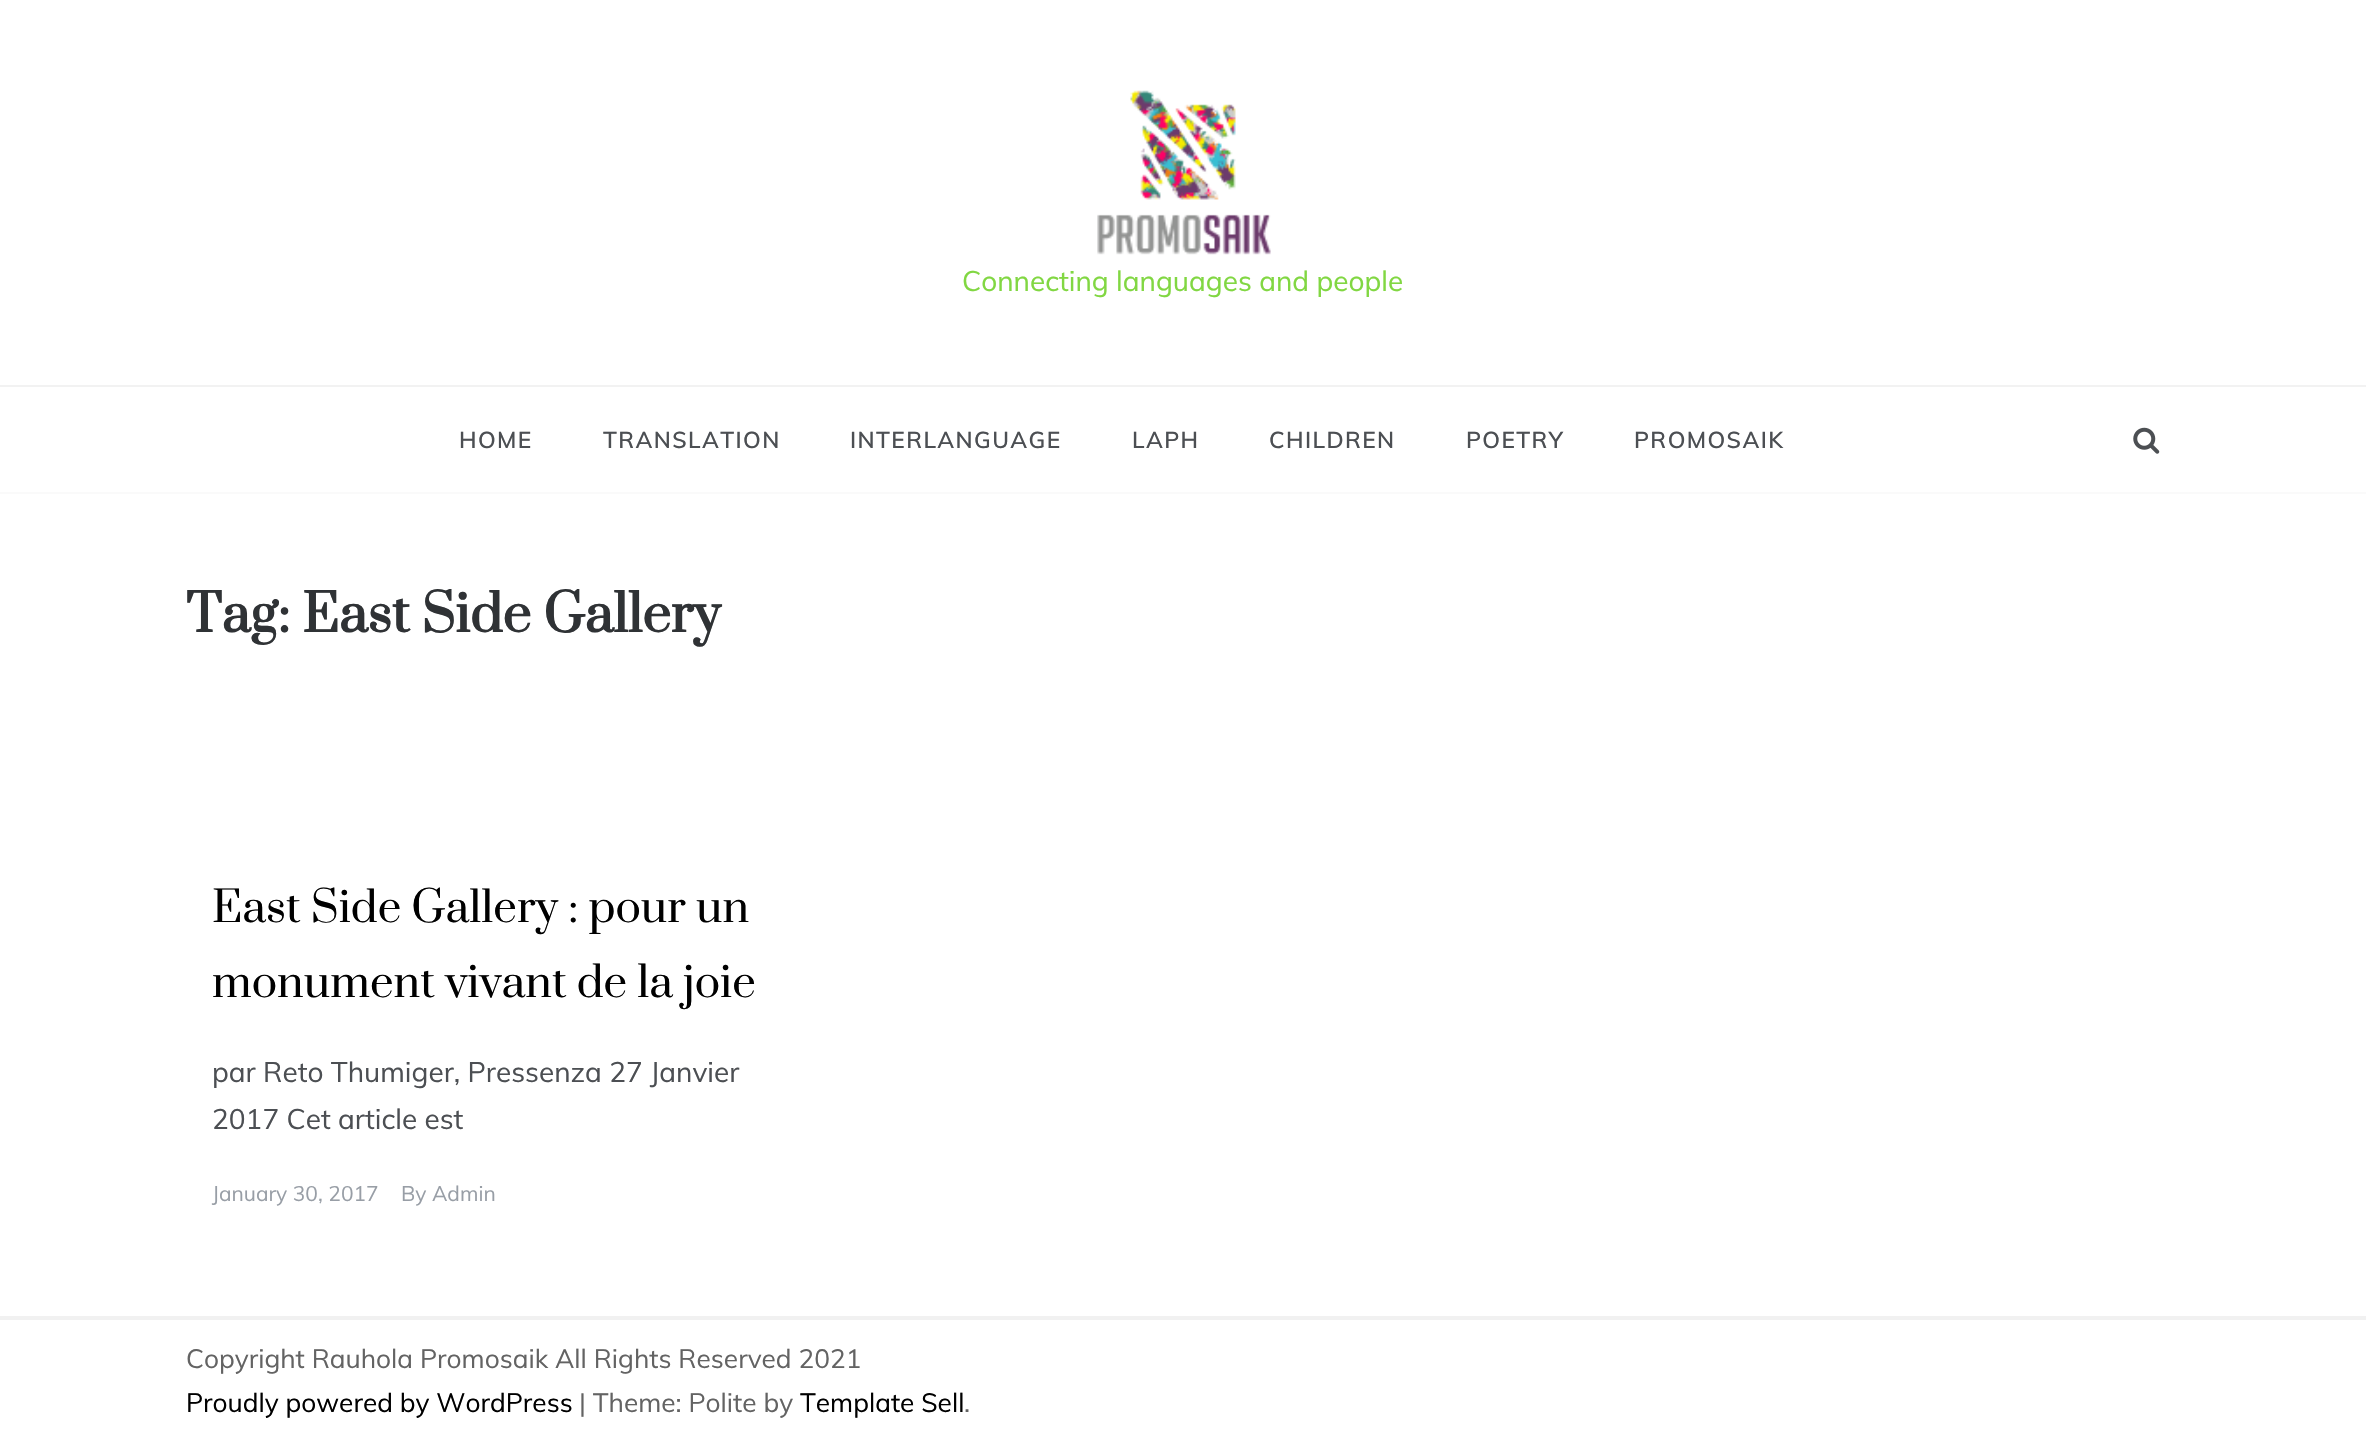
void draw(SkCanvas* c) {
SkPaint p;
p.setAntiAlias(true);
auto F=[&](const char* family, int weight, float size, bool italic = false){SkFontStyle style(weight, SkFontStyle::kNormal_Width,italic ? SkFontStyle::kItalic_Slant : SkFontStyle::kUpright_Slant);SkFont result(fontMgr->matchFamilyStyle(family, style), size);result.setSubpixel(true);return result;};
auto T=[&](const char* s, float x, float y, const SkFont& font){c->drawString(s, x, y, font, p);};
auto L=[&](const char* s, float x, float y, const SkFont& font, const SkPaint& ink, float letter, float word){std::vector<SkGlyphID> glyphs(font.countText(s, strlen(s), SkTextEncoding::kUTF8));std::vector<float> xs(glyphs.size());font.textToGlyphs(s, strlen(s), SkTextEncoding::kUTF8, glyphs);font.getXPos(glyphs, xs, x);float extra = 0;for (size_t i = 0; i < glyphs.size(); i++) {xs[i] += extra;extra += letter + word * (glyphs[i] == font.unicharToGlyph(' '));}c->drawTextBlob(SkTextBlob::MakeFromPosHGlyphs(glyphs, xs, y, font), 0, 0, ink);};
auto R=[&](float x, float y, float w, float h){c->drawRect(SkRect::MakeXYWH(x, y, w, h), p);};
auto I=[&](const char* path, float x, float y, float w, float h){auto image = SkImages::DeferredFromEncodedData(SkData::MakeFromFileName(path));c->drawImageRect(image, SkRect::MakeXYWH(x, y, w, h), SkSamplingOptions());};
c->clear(0xffffffff);
p.setColor(0xfffafafa);
R(0,492,2366,2);
p.setColor(0xfff2f2f2);
R(0,385,2366,2);
I("1.png",1097,90,174,165);
auto f1 = F("Muli",400,28);
p.setColor(0xff81d742);
T("Connecting languages and people",962,291,f1);
auto f2 = F("Muli",600,22.75);
p.setColor(0xff4c4f53);
L("HOME",459,448,f2,p,1.4,0);
L("TRANSLATION",603,448,f2,p,1.4,0);
L("INTERLANGUAGE",850,448,f2,p,1.4,0);
L("LAPH",1132,448,f2,p,1.4,0);
L("CHILDREN",1269,448,f2,p,1.4,0);
L("POETRY",1466,448,f2,p,1.4,0);
L("PROMOSAIK",1634,448,f2,p,1.4,0);
I("2.png",2133,427,27,27);
auto f3 = F("Prata",700,50.75);
p.setColor(0xff2f3235);
T("Tag: East Side Gallery",186,632,f3);
auto f4 = F("Prata",400,42);
p.setColor(0xff000000);
T("East Side Gallery : pour un",212,922,f4);
T("monument vivant de la joie",212,997,f4);
p.setColor(0xff4c4f53);
T("par Reto Thumiger, Pressenza 27 Janvier",212,1082,f1);
T("2017 Cet article est",212,1129,f1);
auto f5 = F("Muli",400,21);
p.setColor(0xff989ea6);
T("January 30, 2017",212,1201,f5);
T("By Admin",401,1201,f5);
p.setColor(0xfff1f1f1);
R(0,1316,2366,4);
auto f6 = F("Muli",400,26.25);
p.setColor(0xff636363);
T("Copyright Rauhola Promosaik All Rights Reserved 2021",186,1368,f6);
p.setColor(0xff000000);
T("Proudly powered by WordPress",186,1412,f6);
p.setColor(0xff636363);
T("| Theme: Polite by",579,1412,f6);
p.setColor(0xff000000);
T("Template Sell",800,1412,f6);
p.setColor(0xff636363);
T(".",964,1412,f6);
}
